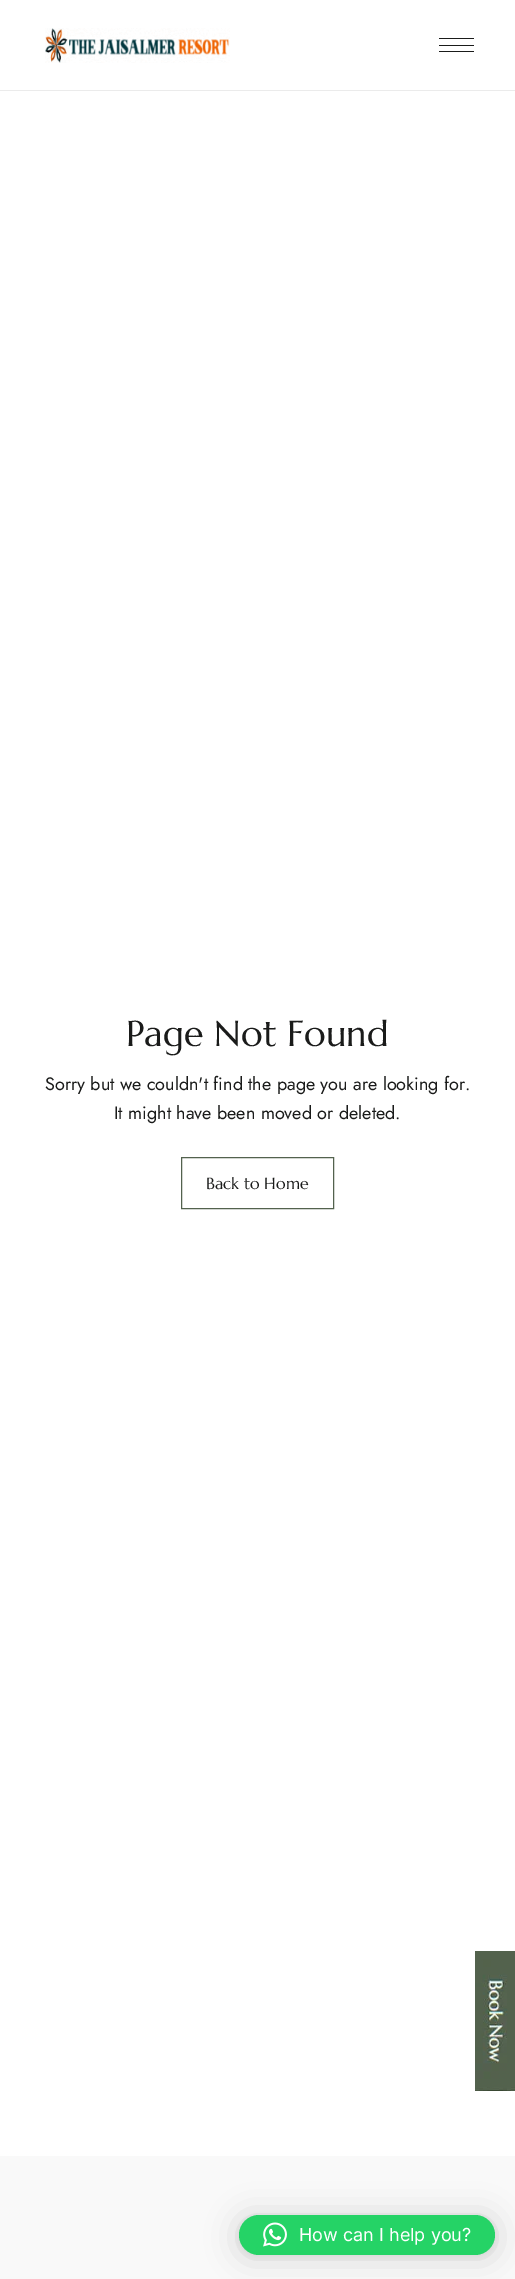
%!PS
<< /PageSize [515 2279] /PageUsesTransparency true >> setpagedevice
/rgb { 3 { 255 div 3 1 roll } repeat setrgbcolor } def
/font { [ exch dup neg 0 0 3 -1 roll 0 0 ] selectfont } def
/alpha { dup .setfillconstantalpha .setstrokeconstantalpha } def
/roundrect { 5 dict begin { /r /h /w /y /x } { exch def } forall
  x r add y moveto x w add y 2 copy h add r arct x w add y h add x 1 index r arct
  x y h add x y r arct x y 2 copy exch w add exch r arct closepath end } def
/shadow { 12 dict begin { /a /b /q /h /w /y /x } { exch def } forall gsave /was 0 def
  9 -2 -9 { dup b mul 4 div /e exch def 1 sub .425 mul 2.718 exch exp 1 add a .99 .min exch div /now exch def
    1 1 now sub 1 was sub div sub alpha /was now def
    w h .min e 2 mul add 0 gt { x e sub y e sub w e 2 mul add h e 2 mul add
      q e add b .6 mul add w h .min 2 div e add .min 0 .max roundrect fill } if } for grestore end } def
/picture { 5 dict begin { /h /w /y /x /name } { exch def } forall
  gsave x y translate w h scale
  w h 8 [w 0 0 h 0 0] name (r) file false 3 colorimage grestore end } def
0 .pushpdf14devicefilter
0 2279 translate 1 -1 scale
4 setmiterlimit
255 255 255 rgb
0 0 515 2279 rectfill
235 235 235 rgb
0 90 515 1 rectfill
(img/1.rgb) 45 28 185 35 picture
[
  [439 38 35 1 26 27 26]
  [439 51 35 1 26 27 26]
  [439 45 35 1 26 27 26]
] { aload pop rgb rectfill } forall
83 98 78 rgb
181.5 1157.5 152 51 rectstroke
(img/2.rgb) 475 1951 40 140 picture
249 249 249 rgb
0 2156 515 123 rectfill
0 0 0 rgb
239 2217 256 40 20 16 0.16 shadow
239 2216 256 40 20 3 0.06 shadow
37 211 102 rgb
239 2215 256 40 20 roundrect fill
(img/3.rgb) 263 2222 24 25 picture
/Marcellus-Regular 36 font
26 27 26 rgb
126 1046 moveto (Page Not Found) show
/Jost-Regular 18 font
45 1090 moveto (Sorry but we couldn't find the page you are looking for.) show
114 1119 moveto (It might have been moved or deleted.) show
/Marcellus-Regular 16 font
206 1189 moveto (Back to Home) show
/Inter-Regular 18 font
255 255 255 rgb
299 2241 moveto (How can I help you?) show
.poppdf14devicefilter showpage
